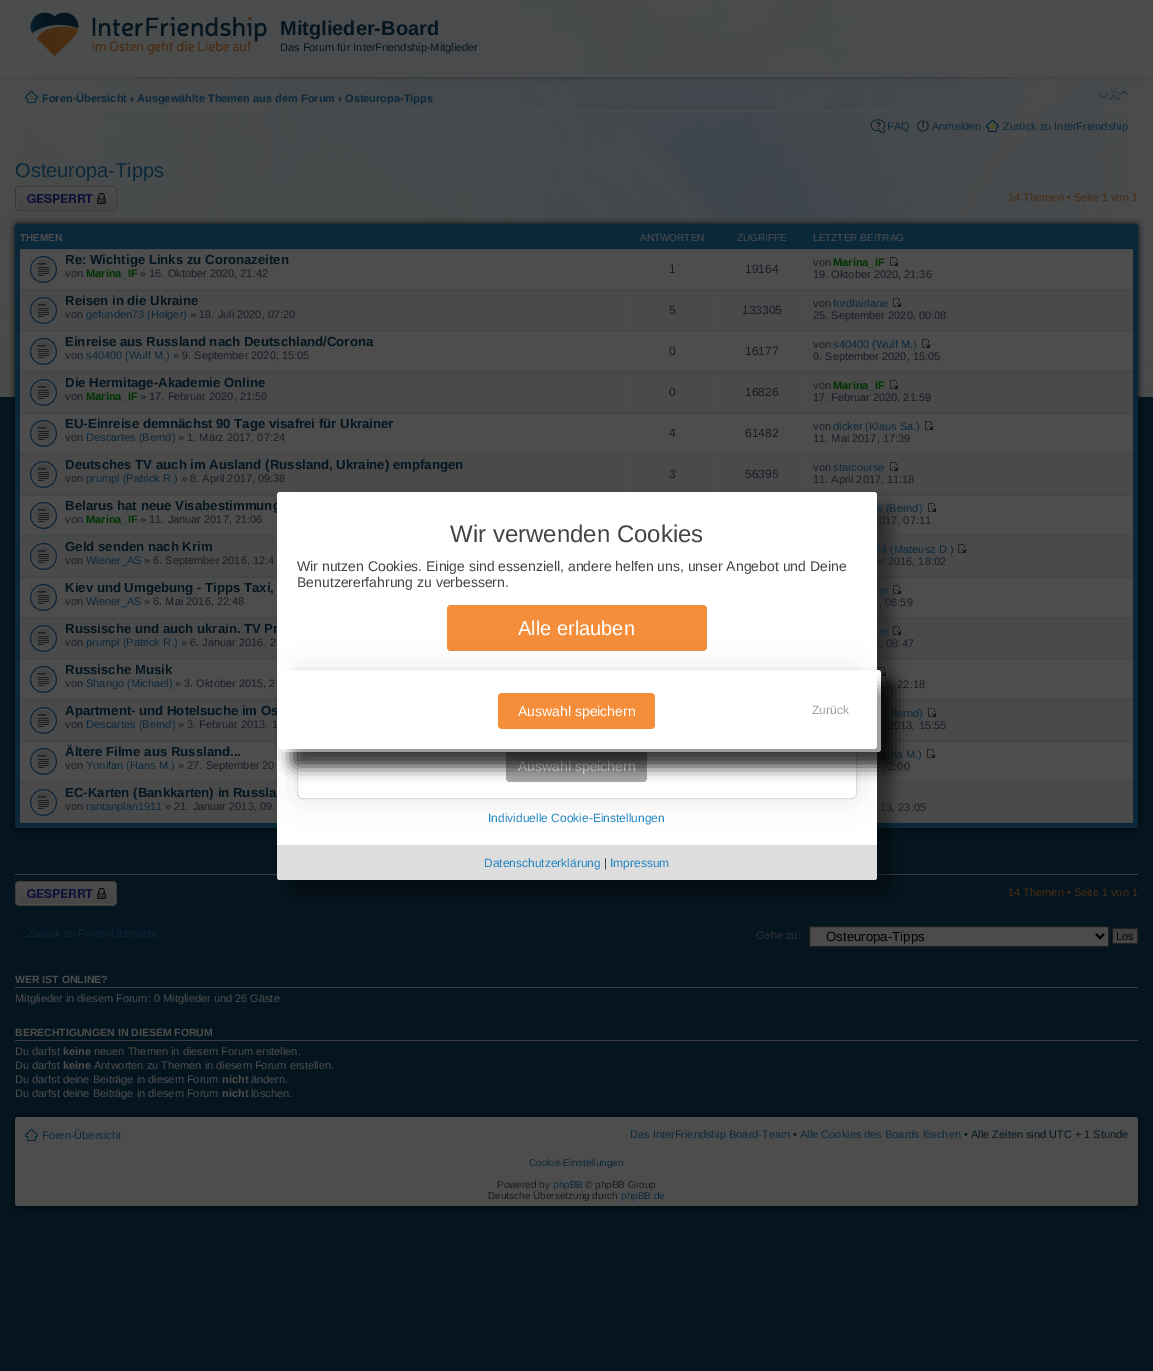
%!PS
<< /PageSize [1153 1371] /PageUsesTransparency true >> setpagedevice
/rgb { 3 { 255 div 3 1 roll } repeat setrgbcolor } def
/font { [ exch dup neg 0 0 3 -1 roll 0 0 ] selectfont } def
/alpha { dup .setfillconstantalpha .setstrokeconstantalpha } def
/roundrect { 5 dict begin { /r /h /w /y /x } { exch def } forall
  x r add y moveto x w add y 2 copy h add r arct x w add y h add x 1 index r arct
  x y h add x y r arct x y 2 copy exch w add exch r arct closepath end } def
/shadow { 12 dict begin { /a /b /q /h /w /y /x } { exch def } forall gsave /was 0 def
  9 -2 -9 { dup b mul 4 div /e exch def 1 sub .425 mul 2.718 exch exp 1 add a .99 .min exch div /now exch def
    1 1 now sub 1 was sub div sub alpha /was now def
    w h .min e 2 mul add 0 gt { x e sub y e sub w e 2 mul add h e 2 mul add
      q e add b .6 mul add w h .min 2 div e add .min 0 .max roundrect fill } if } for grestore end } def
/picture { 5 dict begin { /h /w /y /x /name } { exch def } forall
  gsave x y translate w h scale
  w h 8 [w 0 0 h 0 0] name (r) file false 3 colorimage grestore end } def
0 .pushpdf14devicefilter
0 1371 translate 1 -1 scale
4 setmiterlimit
4 21 31 rgb
0 0 1153 1371 rectfill
(img/1.rgb) 0 0 1153 397 picture
(img/2.rgb) 0 0 1153 82 picture
(img/3.rgb) 30 12 237 44 picture
77 77 77 rgb
25 111 1103 1 rectfill
(img/4.rgb) 25 91 13 12 picture
(img/5.rgb) 1099 88 29 12 picture
(img/6.rgb) 870 119 16 14 picture
(img/7.rgb) 917 120 12 12 picture
(img/8.rgb) 986 120 13 12 picture
(img/9.rgb) 15 186 102 25 picture
5 5 5 rgb
15 224 1123 604 3 3 1 shadow
11 40 58 rgb
15 224 1123 604 3 roundrect fill
[
  [20 250 1113 39 77 77 77]
  [20 249 1113 1 68 71 71]
  [20 289 1113 2 68 71 71]
] { aload pop rgb rectfill } forall
(img/10.rgb) 30 256 27 27 picture
(img/11.rgb) 890 257 8 9 picture
74 74 75 rgb
20 291 1113 39 rectfill
68 71 71 rgb
20 330 1113 2 rectfill
(img/12.rgb) 30 297 27 27 picture
[
  [627 293 1 35 77 77 77]
  [717 293 1 35 77 77 77]
  [807 293 1 32 77 77 77]
] { aload pop rgb rectfill } forall
(img/13.rgb) 893 298 8 9 picture
20 332 1113 39 rectfill
68 71 71 rgb
20 371 1113 2 rectfill
(img/10.rgb) 30 338 27 27 picture
(img/11.rgb) 922 339 8 9 picture
74 74 75 rgb
20 373 1113 39 rectfill
68 71 71 rgb
20 412 1113 2 rectfill
(img/12.rgb) 30 379 27 27 picture
[
  [627 375 1 35 77 77 77]
  [717 375 1 35 77 77 77]
  [807 375 1 32 77 77 77]
] { aload pop rgb rectfill } forall
(img/13.rgb) 890 380 8 9 picture
20 414 1113 39 rectfill
68 71 71 rgb
20 453 1113 2 rectfill
(img/10.rgb) 30 420 27 27 picture
(img/11.rgb) 925 421 8 9 picture
74 74 75 rgb
20 455 1113 39 rectfill
68 71 71 rgb
20 494 1113 2 rectfill
(img/12.rgb) 30 461 27 27 picture
[
  [627 457 1 35 77 77 77]
  [717 457 1 35 77 77 77]
  [807 457 1 32 77 77 77]
] { aload pop rgb rectfill } forall
(img/13.rgb) 890 462 8 9 picture
20 496 1113 39 rectfill
68 71 71 rgb
20 535 1113 2 rectfill
(img/10.rgb) 30 502 27 27 picture
(img/11.rgb) 928 503 8 9 picture
74 74 75 rgb
20 537 1113 39 rectfill
68 71 71 rgb
20 576 1113 2 rectfill
(img/12.rgb) 30 543 27 27 picture
(img/13.rgb) 958 544 8 9 picture
77 77 77 rgb
20 578 1113 39 rectfill
68 71 71 rgb
20 617 1113 2 rectfill
(img/10.rgb) 30 584 27 27 picture
(img/11.rgb) 893 585 8 9 picture
74 74 75 rgb
20 619 1113 39 rectfill
68 71 71 rgb
20 658 1113 2 rectfill
(img/12.rgb) 30 625 27 27 picture
(img/13.rgb) 893 626 8 9 picture
77 77 77 rgb
20 660 1113 39 rectfill
68 71 71 rgb
20 699 1113 2 rectfill
(img/10.rgb) 30 666 27 27 picture
(img/11.rgb) 878 667 8 9 picture
74 74 75 rgb
20 701 1113 39 rectfill
68 71 71 rgb
20 740 1113 2 rectfill
(img/12.rgb) 30 707 27 27 picture
(img/13.rgb) 928 708 8 9 picture
77 77 77 rgb
20 742 1113 39 rectfill
68 71 71 rgb
20 781 1113 2 rectfill
(img/10.rgb) 30 748 27 27 picture
(img/11.rgb) 927 749 8 9 picture
74 74 75 rgb
20 783 1113 39 rectfill
68 71 71 rgb
20 822 1113 1 rectfill
(img/12.rgb) 30 789 27 27 picture
61 61 61 rgb
15 874 1123 1 rectfill
(img/14.rgb) 15 881 102 25 picture
(img/15.rgb) 18 931 4 6 picture
75 75 75 rgb
809.5 926.5 moveto 1108.5 926.5 lineto 1108.5 946.5 lineto 809.5 946.5 lineto closepath gsave fill grestore
31 31 31 rgb
stroke
0 0 0 rgb
2 setlinewidth
1096 934 moveto 1100 938 lineto 1104 934 lineto stroke
(img/16.rgb) 1113 929 24 14 picture
31 31 31 rgb
1 setlinewidth
1112.5 928.5 25 15 rectstroke
61 61 61 rgb
15 987 1123 1 rectfill
15 1040 1123 1 rectfill
5 5 5 rgb
15 1117 1123 89 3 3 1 shadow
77 77 77 rgb
15 1117 1123 89 3 roundrect fill
0 0 0 rgb
291 506 600 388 3 7.5 0.4 shadow
(img/17.rgb) 25 1129 13 12 picture
/LiberationSans-Bold 20 font
4 21 31 rgb
280 35 moveto (Mitglieder-Board) show
/LiberationSans-Regular 11 font
280 51 moveto (Das Forum für InterFriendship-Mitglieder) show
/LiberationSans-Bold 11 font
11 40 58 rgb
42 102 moveto (Foren-Übersicht) show
4 21 31 rgb
130 102 moveto (‹) show
11 40 58 rgb
137 102 moveto (Ausgewählte Themen aus dem Forum) show
4 21 31 rgb
338 102 moveto (‹) show
11 40 58 rgb
345 102 moveto (Osteuropa-Tipps) show
/LiberationSans-Regular 11 font
[
  [(FAQ) 887 130]
  [(Anmelden) 932 130]
  [(Zurück zu InterFriendship) 1003 130]
] { aload pop moveto show } forall
/LiberationSans-Regular 20 font
15 177 moveto (Osteuropa-Tipps) show
/LiberationSans-Regular 11 font
73 43 18 rgb
1008 201 moveto (14 Themen • Seite 1 von 1) show
/LiberationSans-Bold 10 font
77 77 77 rgb
20 241 moveto (THEMEN) show
/LiberationSans-Regular 10 font
[
  [(ANTWORTEN) 640 241]
  [(ZUGRIFFE) 737 241]
  [(LETZTER BEITRAG) 813 241]
] { aload pop moveto show } forall
/LiberationSans-Bold 13.2 font
4 21 31 rgb
65 264 moveto (Re: Wichtige Links zu Coronazeiten) show
/LiberationSans-Regular 11 font
23 28 36 rgb
65 277 moveto (von) show
/LiberationSans-Bold 11 font
0 51 0 rgb
86 277 moveto (Marina_IF) show
/LiberationSans-Regular 11 font
23 28 36 rgb
140 277 moveto (» 16. Oktober 2020, 21:42) show
/LiberationSans-Regular 12 font
669 273 moveto (1) show
745 273 moveto (19164) show
/LiberationSans-Regular 11 font
813 266 moveto (von) show
/LiberationSans-Bold 11 font
0 51 0 rgb
833 266 moveto (Marina_IF) show
/LiberationSans-Regular 11 font
23 28 36 rgb
813 278 moveto (19. Oktober 2020, 21:36) show
/LiberationSans-Bold 13.2 font
4 21 31 rgb
65 305 moveto (Reisen in die Ukraine) show
/LiberationSans-Regular 11 font
23 28 36 rgb
65 318 moveto (von) show
11 40 58 rgb
86 318 moveto (gefunden73 \(Holger\)) show
23 28 36 rgb
190 318 moveto (» 18. Juli 2020, 07:20) show
/LiberationSans-Regular 12 font
669 314 moveto (5) show
742 314 moveto (133305) show
/LiberationSans-Regular 11 font
813 307 moveto (von) show
11 40 58 rgb
833 307 moveto (fordfairlane) show
23 28 36 rgb
813 319 moveto (25. September 2020, 00:08) show
/LiberationSans-Bold 13.2 font
4 21 31 rgb
65 346 moveto (Einreise aus Russland nach Deutschland/Corona) show
/LiberationSans-Regular 11 font
23 28 36 rgb
65 359 moveto (von) show
11 40 58 rgb
86 359 moveto (s40400 \(Wulf M.\)) show
23 28 36 rgb
173 359 moveto (» 9. September 2020, 15:05) show
/LiberationSans-Regular 12 font
669 355 moveto (0) show
745 355 moveto (16177) show
/LiberationSans-Regular 11 font
813 348 moveto (von) show
11 40 58 rgb
833 348 moveto (s40400 \(Wulf M.\)) show
23 28 36 rgb
813 360 moveto (9. September 2020, 15:05) show
/LiberationSans-Bold 13.2 font
4 21 31 rgb
65 387 moveto (Die Hermitage-Akademie Online) show
/LiberationSans-Regular 11 font
23 28 36 rgb
65 400 moveto (von) show
/LiberationSans-Bold 11 font
0 51 0 rgb
86 400 moveto (Marina_IF) show
/LiberationSans-Regular 11 font
23 28 36 rgb
140 400 moveto (» 17. Februar 2020, 21:59) show
/LiberationSans-Regular 12 font
669 396 moveto (0) show
745 396 moveto (16826) show
/LiberationSans-Regular 11 font
813 389 moveto (von) show
/LiberationSans-Bold 11 font
0 51 0 rgb
833 389 moveto (Marina_IF) show
/LiberationSans-Regular 11 font
23 28 36 rgb
813 401 moveto (17. Februar 2020, 21:59) show
/LiberationSans-Bold 13.2 font
4 21 31 rgb
65 428 moveto (EU-Einreise demnächst 90 Tage visafrei für Ukrainer) show
/LiberationSans-Regular 11 font
23 28 36 rgb
65 441 moveto (von) show
11 40 58 rgb
86 441 moveto (Descartes \(Bernd\)) show
23 28 36 rgb
178 441 moveto (» 1. März 2017, 07:24) show
/LiberationSans-Regular 12 font
669 437 moveto (4) show
745 437 moveto (61482) show
/LiberationSans-Regular 11 font
813 430 moveto (von) show
11 40 58 rgb
833 430 moveto (dicker \(Klaus Sa.\)) show
23 28 36 rgb
813 442 moveto (11. Mai 2017, 17:39) show
/LiberationSans-Bold 13.2 font
4 21 31 rgb
65 469 moveto (Deutsches TV auch im Ausland \(Russland, Ukraine\) empfangen) show
/LiberationSans-Regular 11 font
23 28 36 rgb
65 482 moveto (von) show
11 40 58 rgb
86 482 moveto (prumpl \(Patrick R.\)) show
23 28 36 rgb
181 482 moveto (» 8. April 2017, 09:38) show
/LiberationSans-Regular 12 font
669 478 moveto (3) show
745 478 moveto (56395) show
/LiberationSans-Regular 11 font
813 471 moveto (von) show
11 40 58 rgb
833 471 moveto (starcourse) show
23 28 36 rgb
813 483 moveto (11. April 2017, 11:18) show
/LiberationSans-Bold 13.2 font
4 21 31 rgb
65 510 moveto (Belarus hat neue Visabestimmung) show
/LiberationSans-Regular 11 font
23 28 36 rgb
65 523 moveto (von) show
/LiberationSans-Bold 11 font
0 51 0 rgb
86 523 moveto (Marina_IF) show
/LiberationSans-Regular 11 font
23 28 36 rgb
140 523 moveto (» 11. Januar 2017, 21:06) show
11 40 58 rgb
877 512 moveto (s \(Bernd\)) show
23 28 36 rgb
879 524 moveto (017, 07:11) show
/LiberationSans-Bold 13.2 font
4 21 31 rgb
65 551 moveto (Geld senden nach Krim) show
/LiberationSans-Regular 11 font
23 28 36 rgb
65 564 moveto (von) show
11 40 58 rgb
86 564 moveto (Wiener_AS) show
23 28 36 rgb
144 564 moveto (» 6. September 2016, 12:4) show
11 40 58 rgb
875 553 moveto (74 \(Mateusz D.\)) show
23 28 36 rgb
875 565 moveto (er 2016, 18:02) show
/LiberationSans-Bold 13.2 font
4 21 31 rgb
65 592 moveto (Kiev und Umgebung - Tipps Taxi,) show
/LiberationSans-Regular 11 font
23 28 36 rgb
65 605 moveto (von) show
11 40 58 rgb
86 605 moveto (Wiener_AS) show
23 28 36 rgb
144 605 moveto (» 6. Mai 2016, 22:48) show
11 40 58 rgb
879 594 moveto (er) show
23 28 36 rgb
879 606 moveto (, 06:59) show
/LiberationSans-Bold 13.2 font
4 21 31 rgb
65 633 moveto (Russische und auch ukrain. TV Pr) show
/LiberationSans-Regular 11 font
23 28 36 rgb
65 646 moveto (von) show
11 40 58 rgb
86 646 moveto (prumpl \(Patrick R.\)) show
23 28 36 rgb
181 646 moveto (» 6. Januar 2016, 2) show
11 40 58 rgb
879 635 moveto (er) show
23 28 36 rgb
874 647 moveto (6, 08:47) show
/LiberationSans-Bold 13.2 font
4 21 31 rgb
65 674 moveto (Russische Musik) show
/LiberationSans-Regular 11 font
23 28 36 rgb
65 687 moveto (von) show
11 40 58 rgb
86 687 moveto (Shango \(Michael\)) show
23 28 36 rgb
175 687 moveto (» 3. Oktober 2015, 2) show
879 688 moveto (15, 22:18) show
/LiberationSans-Bold 13.2 font
4 21 31 rgb
65 715 moveto (Apartment- und Hotelsuche im Os) show
/LiberationSans-Regular 11 font
23 28 36 rgb
65 728 moveto (von) show
11 40 58 rgb
86 728 moveto (Descartes \(Bernd\)) show
23 28 36 rgb
178 728 moveto (» 3. Februar 2013, 1) show
11 40 58 rgb
890 717 moveto (Bernd\)) show
23 28 36 rgb
888 729 moveto (2013, 15:55) show
/LiberationSans-Bold 13.2 font
4 21 31 rgb
65 756 moveto (Ältere Filme aus Russland...) show
/LiberationSans-Regular 11 font
23 28 36 rgb
65 769 moveto (von) show
11 40 58 rgb
86 769 moveto (Yonifan \(Hans M.\)) show
23 28 36 rgb
178 769 moveto (» 27. September 20) show
11 40 58 rgb
891 758 moveto (ns M.\)) show
23 28 36 rgb
876 770 moveto (, 22:00) show
/LiberationSans-Bold 13.2 font
4 21 31 rgb
65 797 moveto (EC-Karten \(Bankkarten\) in Russla) show
/LiberationSans-Regular 11 font
23 28 36 rgb
65 810 moveto (von) show
11 40 58 rgb
86 810 moveto (rantanplan1911) show
23 28 36 rgb
165 810 moveto (» 21. Januar 2013, 09:) show
880 811 moveto (13, 23:05) show
73 43 18 rgb
1008 896 moveto (14 Themen • Seite 1 von 1) show
11 40 58 rgb
27 937 moveto (Zurück zu Foren-Übersicht) show
50 50 50 rgb
756 939 moveto (Gehe zu:) show
/LiberationSans-Regular 13.25 font
0 0 0 rgb
826 941 moveto (Osteuropa-Tipps) show
/LiberationSans-Regular 11 font
1116 940 moveto (Los) show
/LiberationSans-Bold 10.5 font
77 77 77 rgb
15 983 moveto (WER IST ONLINE?) show
/LiberationSans-Regular 11 font
15 1002 moveto (Mitglieder in diesem Forum: 0 Mitglieder und 26 Gäste) show
/LiberationSans-Bold 10.5 font
15 1036 moveto (BERECHTIGUNGEN IN DIESEM FORUM) show
/LiberationSans-Regular 11 font
15 1055 moveto (Du darfst) show
/LiberationSans-Bold 11 font
63 1055 moveto (keine) show
/LiberationSans-Regular 11 font
94 1055 moveto (neuen Themen in diesem Forum erstellen.) show
15 1069 moveto (Du darfst) show
/LiberationSans-Bold 11 font
63 1069 moveto (keine) show
/LiberationSans-Regular 11 font
94 1069 moveto (Antworten zu Themen in diesem Forum erstellen.) show
15 1083 moveto (Du darfst deine Beiträge in diesem Forum) show
/LiberationSans-Bold 11 font
222 1083 moveto (nicht) show
/LiberationSans-Regular 11 font
251 1083 moveto (ändern.) show
15 1097 moveto (Du darfst deine Beiträge in diesem Forum) show
/LiberationSans-Bold 11 font
222 1097 moveto (nicht) show
/LiberationSans-Regular 11 font
251 1097 moveto (löschen.) show
255 255 255 rgb
277 492 600 388 3 roundrect fill
/LiberationSans-Regular 24 font
68 68 68 rgb
450 542 moveto (Wir verwenden Cookies) show
/LiberationSans-Regular 14 font
297 571 moveto (Wir nutzen Cookies. Einige sind essenziell, andere helfen uns, unser Angebot und Deine) show
297 587 moveto (Benutzererfahrung zu verbessern.) show
244 142 59 rgb
447 605 260 46 4 roundrect fill
gsave
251 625 moveto 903 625 lineto 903 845 lineto 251 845 lineto closepath 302 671 moveto 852 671 lineto 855 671 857 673 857 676 curveto 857 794 lineto 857 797 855 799 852 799 curveto 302 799 lineto 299 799 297 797 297 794 curveto 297 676 lineto 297 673 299 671 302 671 curveto closepath eoclip newpath
0 0 0 rgb
297 671 560 128 5 15 0.1 shadow
grestore
/LiberationSans-Regular 20 font
255 255 255 rgb
518 635 moveto (Alle erlauben) show
204 204 204 rgb
[1 1] 0 setdash
302 671.5 moveto 852 671.5 lineto 854.5 671.5 856.5 673.5 856.5 676 curveto 856.5 794 lineto 856.5 796.5 854.5 798.5 852 798.5 curveto 302 798.5 lineto 299.5 798.5 297.5 796.5 297.5 794 curveto 297.5 676 lineto 297.5 673.5 299.5 671.5 302 671.5 curveto closepath stroke
170 170 170 rgb
506 750 141 32 4 roundrect fill
/LiberationSans-Regular 14 font
255 255 255 rgb
518 771 moveto (Auswahl speichern) show
/LiberationSans-Regular 12 font
35 134 193 rgb
488 822 moveto (Individuelle Cookie-Einstellungen) show
221 221 221 rgb
277 845 moveto 877 845 lineto 877 877 lineto 877 878.5 875.5 880 874 880 curveto 280 880 lineto 278.5 880 277 878.5 277 877 curveto closepath fill
35 134 193 rgb
484 867 moveto (Datenschutzerklärung) show
68 68 68 rgb
604 867 moveto (|) show
35 134 193 rgb
610 867 moveto (Impressum) show
0 0 0 rgb
295 684 600 82 3 7.5 0.4 shadow
295 684 600 82 3 7.5 0.4 shadow
255 255 255 rgb
281 670 600 82 3 roundrect fill
0 0 0 rgb
291 687 600 76 3 7.5 0.4 shadow
255 255 255 rgb
277 673 600 76 3 roundrect fill
244 142 59 rgb
498 693 157 36 4 roundrect fill
/LiberationSans-Regular 14 font
255 255 255 rgb
518 716 moveto (Auswahl speichern) show
/LiberationSans-Regular 12 font
160 160 160 rgb
812 714 moveto (Zurück) show
/LiberationSans-Regular 11 font
11 40 58 rgb
42 1139 moveto (Foren-Übersicht) show
630 1138 moveto (Das InterFriendship Board-Team) show
4 21 31 rgb
793 1138 moveto (•) show
11 40 58 rgb
800 1138 moveto (Alle Cookies des Boards löschen) show
4 21 31 rgb
964 1138 moveto (• Alle Zeiten sind UTC + 1 Stunde) show
/LiberationSans-Regular 10 font
11 40 58 rgb
529 1166 moveto (Cookie-Einstellungen) show
26 26 26 rgb
497 1188 moveto (Powered by) show
11 40 58 rgb
553 1188 moveto (phpBB) show
26 26 26 rgb
585 1188 moveto (© phpBB Group) show
488 1199 moveto (Deutsche Übersetzung durch) show
11 40 58 rgb
621 1199 moveto (phpBB.de) show
.poppdf14devicefilter showpage
